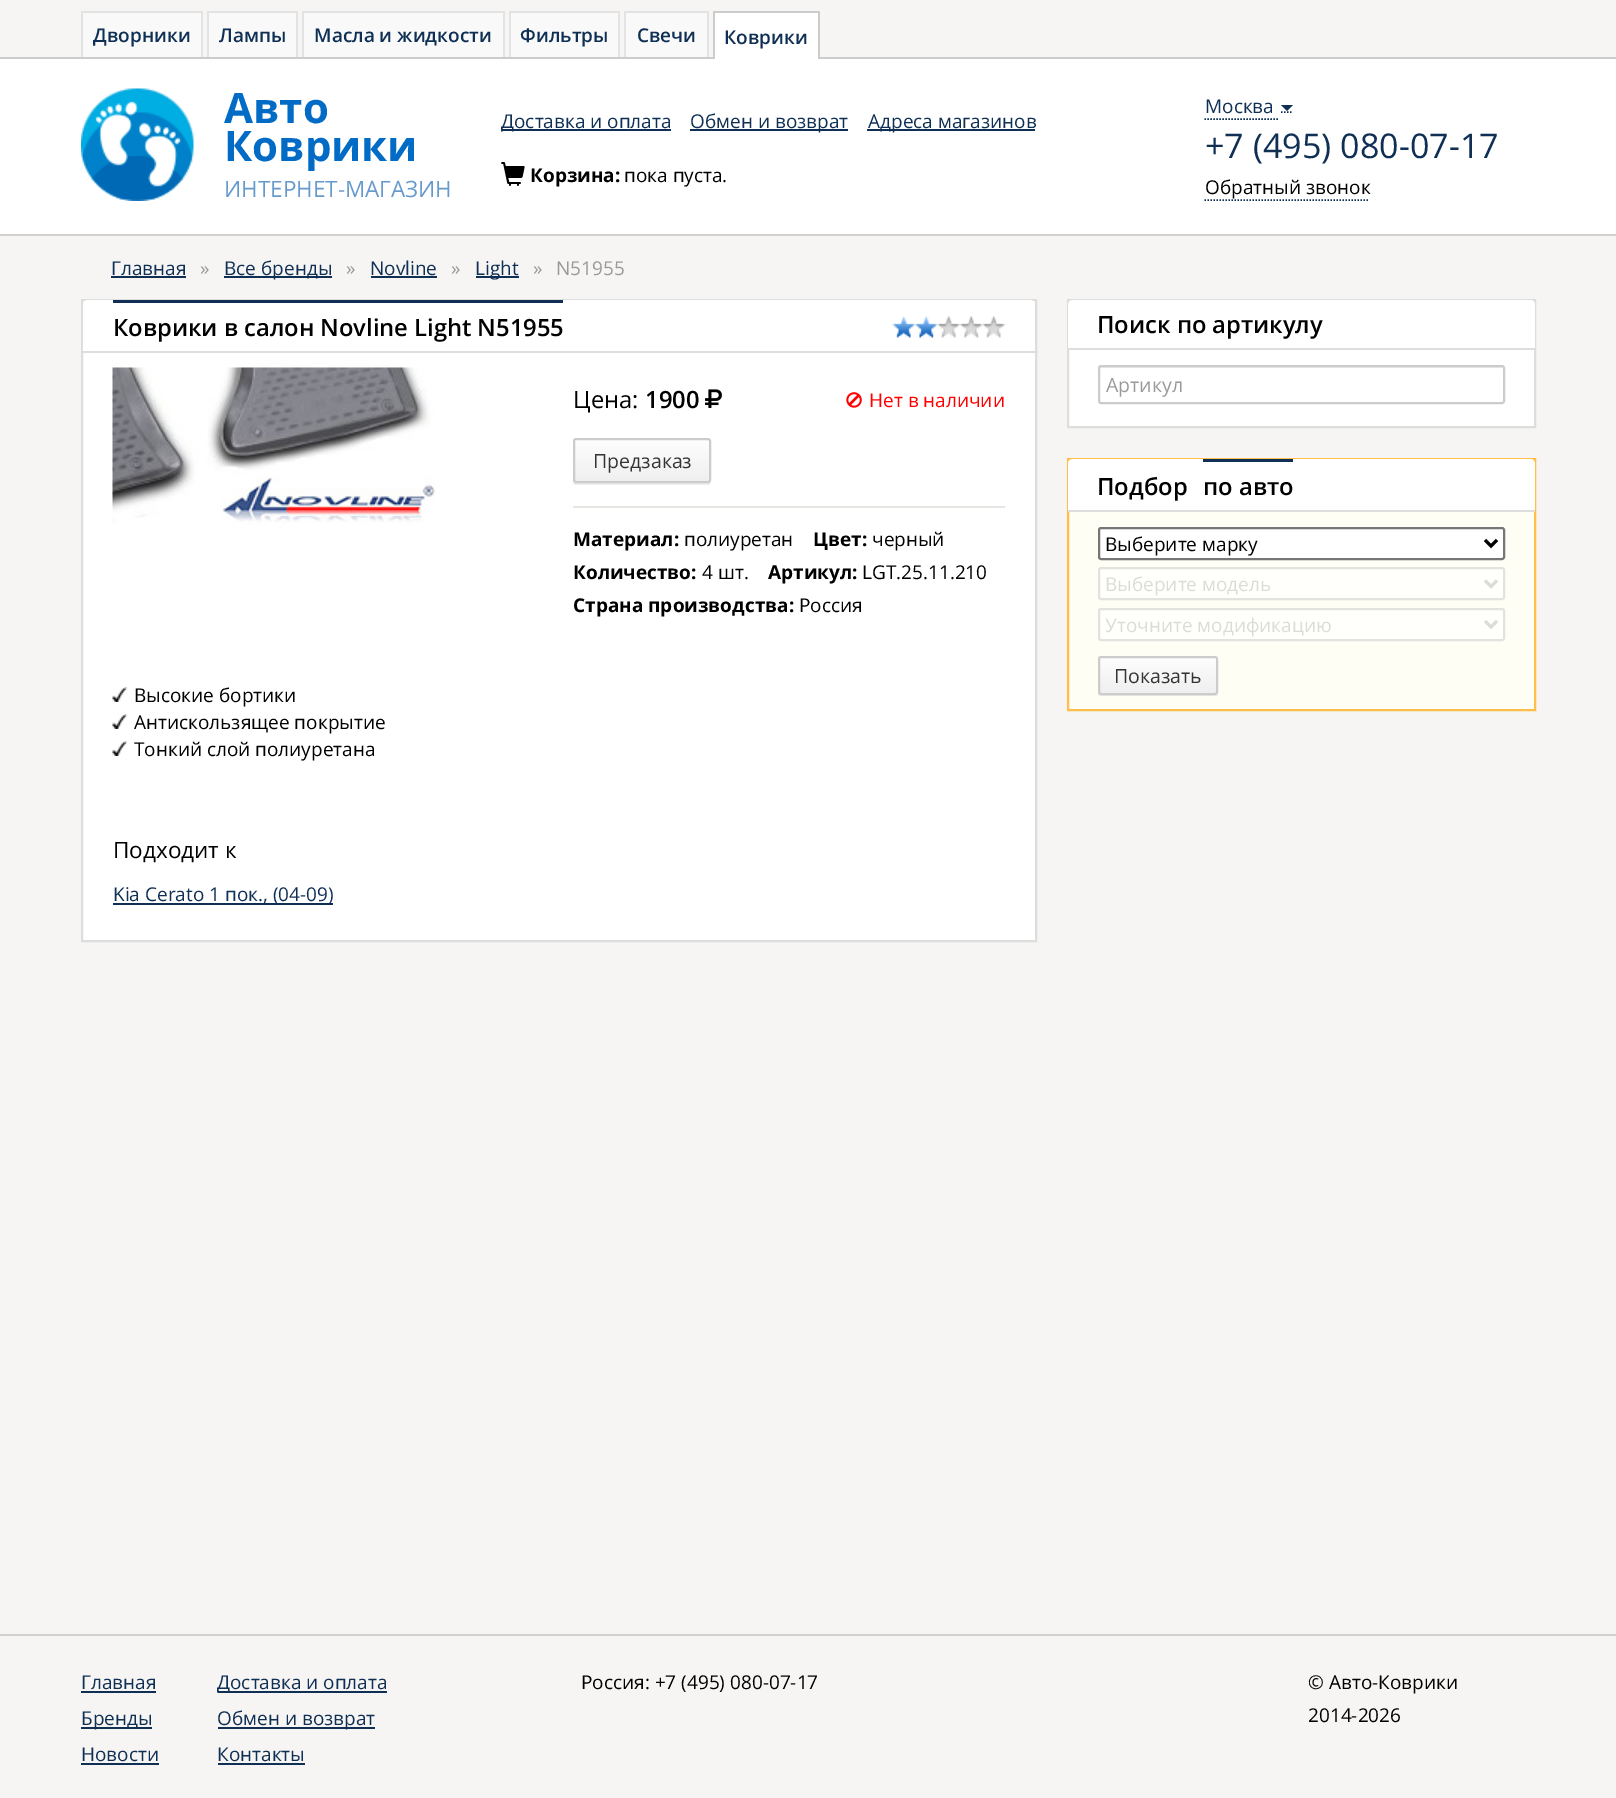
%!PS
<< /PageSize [1616 1798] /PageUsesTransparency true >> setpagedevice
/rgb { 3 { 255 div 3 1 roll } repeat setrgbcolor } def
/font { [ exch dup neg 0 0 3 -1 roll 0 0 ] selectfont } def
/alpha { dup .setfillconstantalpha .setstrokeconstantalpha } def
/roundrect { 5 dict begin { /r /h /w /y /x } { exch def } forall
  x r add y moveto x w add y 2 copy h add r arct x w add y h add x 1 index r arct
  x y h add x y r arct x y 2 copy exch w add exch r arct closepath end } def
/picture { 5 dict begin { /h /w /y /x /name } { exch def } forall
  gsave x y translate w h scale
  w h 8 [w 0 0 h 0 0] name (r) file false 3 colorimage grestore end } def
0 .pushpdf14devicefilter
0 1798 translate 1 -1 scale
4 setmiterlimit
246 245 243 rgb
0 0 1616 1798 rectfill
[
  [83 13 118 44 249 249 249]
  [81 11 122 2 227 227 227]
  [201 11 2 46 227 227 227]
  [81 11 2 46 227 227 227]
  [209 13 87 44 249 249 249]
  [207 11 90 2 227 227 227]
  [296 11 2 46 227 227 227]
  [207 11 2 46 227 227 227]
  [304 13 199 44 249 249 249]
  [302 11 202 2 227 227 227]
  [503 11 2 46 227 227 227]
  [302 11 2 46 227 227 227]
  [511 13 107 44 249 249 249]
  [509 11 111 2 227 227 227]
  [618 11 2 46 227 227 227]
  [509 11 2 46 227 227 227]
  [626 13 81 44 249 249 249]
  [624 11 84 2 227 227 227]
  [707 11 2 46 227 227 227]
  [624 11 2 46 227 227 227]
  [0 57 1616 2 204 204 204]
  [715 13 103 46 255 255 255]
  [713 11 106 2 204 204 204]
  [818 11 2 48 204 204 204]
  [713 11 2 48 204 204 204]
  [0 59 1616 175 255 255 255]
  [0 234 1616 2 209 208 207]
] { aload pop rgb rectfill } forall
(img/1.rgb) 81 88 113 113 picture
[
  [501 129 170 2 15 48 84]
  [690 129 158 2 15 48 84]
  [867 129 168 2 15 48 84]
] { aload pop rgb rectfill } forall
1.5 setlinewidth
[1.5 1.5] 0 setdash
1204.5 119 moveto 1278 119 lineto stroke
1281 112 moveto 1293 112 lineto stroke
1281 105 moveto 1293 105 lineto 1287 111 lineto closepath fill
1204.5 200 moveto 1369.5 200 lineto stroke
(img/2.rgb) 501 162 24 24 picture
[
  [111 276 75 2 15 48 84]
  [224 276 108 2 15 48 84]
  [371 276 66 2 15 48 84]
  [476 276 43 2 15 48 84]
] { aload pop rgb rectfill } forall
255 255 255 rgb
82 300 moveto 1036 300 lineto 1036 941 lineto 82 941 lineto closepath gsave fill grestore
221 221 221 rgb
2 setlinewidth
[] 0 setdash
stroke
255 255 255 rgb
88 300 moveto 1030 300 lineto 1033 300 1035 302 1035 305 curveto 1035 353 lineto 83 353 lineto 83 305 lineto 83 302 85 300 88 300 curveto closepath fill
221 221 221 rgb
83 351 952 2 rectfill
15 48 84 rgb
113 300 450 3 rectfill
(img/3.rgb) 892 316 23 22 picture
(img/4.rgb) 915 316 23 22 picture
(img/5.rgb) 937 316 23 22 picture
(img/6.rgb) 960 316 23 22 picture
(img/7.rgb) 982 316 23 22 picture
(img/8.rgb) 112 367 324 158 picture
230 229 226 rgb
573 506 432 2 rectfill
(img/9.rgb) 705 389 17 19 picture
(img/10.rgb) 846 392 16 16 picture
237 237 237 rgb
573 480 moveto 573 482 lineto 573 484 574 485 576 485 curveto 708 485 lineto 710 485 711 484 711 482 curveto 711 480 lineto 711 482 710 483 708 483 curveto 576 483 lineto 574 483 573 482 573 480 curveto closepath fill
gsave
573 438 138 45 3 roundrect clip newpath
gsave 573 440 moveto 711 440 lineto 711 482 lineto 573 482 lineto closepath clip newpath
<< /ShadingType 2 /ColorSpace /DeviceRGB /Coords [642 440 642 482] /Extend [true true] /Function << /FunctionType 2 /Domain [0 1] /C0 [0.996 0.996 0.996] /C1 [0.937 0.937 0.937] /N 1 >> >> shfill grestore
grestore
204 204 204 rgb
574 439 136 43 2 roundrect stroke
(img/11.rgb) 112 687 16 15 picture
(img/11.rgb) 112 714 16 15 picture
(img/11.rgb) 112 741 16 15 picture
15 48 84 rgb
113 903 220 2 rectfill
255 255 255 rgb
1068 300 moveto 1535 300 lineto 1535 427 lineto 1068 427 lineto closepath gsave fill grestore
221 221 221 rgb
stroke
255 255 255 rgb
1073 300 moveto 1530 300 lineto 1533 300 1535 302 1535 305 curveto 1535 350 lineto 1068 350 lineto 1068 305 lineto 1068 302 1070 300 1073 300 curveto closepath fill
221 221 221 rgb
1068 348 467 2 rectfill
236 236 236 rgb
1101 368 moveto 1502 368 lineto 1503 369 lineto 1502 366 lineto 1102 366 lineto 1100 366 1100 368 1100 369 curveto 1100 368 1100 368 1101 368 curveto closepath fill
204 204 204 rgb
1099 366 405 37 2 roundrect stroke
255 254 245 rgb
1068 459 moveto 1535 459 lineto 1535 710 lineto 1068 710 lineto closepath gsave fill grestore
255 189 74 rgb
stroke
255 255 255 rgb
1073 459 moveto 1530 459 lineto 1533 459 1535 461 1535 464 curveto 1535 512 lineto 1068 512 lineto 1068 464 lineto 1068 461 1070 459 1073 459 curveto closepath fill
221 221 221 rgb
1068 510 467 2 rectfill
15 48 84 rgb
1203 459 90 3 rectfill
255 255 255 rgb
1099 528 405 31 2 roundrect gsave fill grestore
118 118 118 rgb
stroke
0 0 0 rgb
3 setlinewidth
1485 540 moveto 1491 546 lineto 1497 540 lineto stroke
255 255 252 rgb
1098 567 407 33 3 roundrect fill
0.3 alpha
159 159 156 rgb
2 setlinewidth
1099 568 405 31 2 roundrect stroke
1 alpha
219 219 216 rgb
3 setlinewidth
1485 580.5 moveto 1491 586.5 lineto 1497 580.5 lineto stroke
255 255 252 rgb
1098 608 407 33 3 roundrect fill
0.3 alpha
159 159 156 rgb
2 setlinewidth
1099 609 405 31 2 roundrect stroke
1 alpha
219 219 216 rgb
3 setlinewidth
1485 621 moveto 1491 627 lineto 1497 621 lineto stroke
237 236 228 rgb
1098 692 moveto 1098 693 lineto 1098 695 1099 696 1101 696 curveto 1215 696 lineto 1217 696 1218 695 1218 693 curveto 1218 692 lineto 1218 693 1217 694 1215 694 curveto 1101 694 lineto 1099 694 1098 693 1098 692 curveto closepath fill
gsave
1098 656 120 39 3 roundrect clip newpath
gsave 1098 657 moveto 1218 657 lineto 1218 693 lineto 1098 693 lineto closepath clip newpath
<< /ShadingType 2 /ColorSpace /DeviceRGB /Coords [1158 657 1158 693] /Extend [true true] /Function << /FunctionType 2 /Domain [0 1] /C0 [0.996 0.996 0.996] /C1 [0.937 0.937 0.937] /N 1 >> >> shfill grestore
grestore
204 204 204 rgb
2 setlinewidth
1099 657 118 37 2 roundrect stroke
[
  [0 1634 1616 2 209 208 207]
  [81 1691 75 2 15 48 84]
  [81 1727 71 2 15 48 84]
  [81 1763 78 2 15 48 84]
  [218 1691 169 2 15 48 84]
  [218 1727 157 2 15 48 84]
  [218 1763 87 2 15 48 84]
] { aload pop rgb rectfill } forall
/OpenSans-SemiBold 19 font
[
  [(Дворники) 93 42]
  [(Лампы) 219 42]
  [(Масла и жидкости) 314 42]
  [(Фильтры) 520 42]
  [(Свечи) 637 42]
  [(Коврики) 724 44]
] { aload pop moveto show } forall
/OpenSans-Bold 42 font
2 107 197 rgb
224 123 moveto (Авто) show
224 161 moveto (Коврики) show
/OpenSans-Regular 22.5 font
102 153 204 rgb
224 197 moveto (ИНТЕРНЕТ-МАГАЗИН) show
/OpenSans-Regular 19 font
15 48 84 rgb
[
  [(Доставка и оплата) 501 128]
  [(Обмен и возврат) 690 128]
  [(Адреса магазинов) 868 128]
  [(Москва) 1205 113]
] { aload pop moveto show } forall
/OpenSans-Regular 34.1 font
1205 158 moveto (+7 \(495\) 080-07-17) show
/OpenSans-Regular 19 font
0 0 0 rgb
1205 194 moveto (Обратный звонок) show
/OpenSans-Bold 19 font
530 182 moveto (Корзина:) show
/OpenSans-Regular 19 font
624 182 moveto (пока пуста.) show
15 48 84 rgb
111 275 moveto (Главная) show
153 153 153 rgb
200 275 moveto (») show
15 48 84 rgb
224 275 moveto (Все бренды) show
153 153 153 rgb
346 275 moveto (») show
15 48 84 rgb
370 275 moveto (Novline) show
153 153 153 rgb
451 275 moveto (») show
15 48 84 rgb
475 275 moveto (Light) show
153 153 153 rgb
533 275 moveto (») show
556 275 moveto (N51955) show
/OpenSans-SemiBold 23.75 font
0 0 0 rgb
113 336 moveto (Коврики в салон Novline Light N51955) show
/OpenSans-Regular 23.75 font
573 408 moveto (Цена:) show
/OpenSans-SemiBold 23.75 font
645 408 moveto (1900) show
/OpenSans-Regular 19 font
255 0 0 rgb
869 407 moveto (Нет в наличии) show
/OpenSans-Regular 19.5 font
51 51 51 rgb
593 468 moveto (Предзаказ) show
/OpenSans-Bold 19 font
0 0 0 rgb
573 546 moveto (Материал:) show
/OpenSans-Regular 19 font
684 546 moveto (полиуретан) show
/OpenSans-Bold 19 font
813 546 moveto (Цвет:) show
/OpenSans-Regular 19 font
872 546 moveto (черный) show
/OpenSans-Bold 19 font
573 579 moveto (Количество:) show
/OpenSans-Regular 19 font
702 579 moveto (4 шт.) show
/OpenSans-Bold 19 font
768 579 moveto (Артикул:) show
/OpenSans-Regular 19 font
862 579 moveto (LGT.25.11.210) show
/OpenSans-Bold 19 font
573 612 moveto (Страна производства:) show
/OpenSans-Regular 19 font
[
  [(Россия) 799 612]
  [(Высокие бортики) 134 702]
  [(Антискользящее покрытие) 134 729]
  [(Тонкий слой полиуретана) 134 756]
] { aload pop moveto show } forall
/OpenSans-Regular 22.5 font
113 858 moveto (Подходит к) show
/OpenSans-Regular 19 font
15 48 84 rgb
113 901 moveto (Kia Cerato 1 пок., \(04-09\)) show
/OpenSans-SemiBold 23.75 font
0 0 0 rgb
1097 333 moveto (Поиск по артикулу) show
/OpenSans-Regular 19.5 font
153 153 153 rgb
1106 392 moveto (Артикул) show
/OpenSans-SemiBold 23.75 font
0 0 0 rgb
1097 495 moveto (Подбор) show
1203 495 moveto (по авто) show
/OpenSans-Regular 19 font
1105 551 moveto (Выберите марку) show
219 219 216 rgb
1105 591 moveto (Выберите модель) show
gsave
1106 609 373 30 rectclip
1105 632 moveto (Уточните модификацию) show
grestore
/OpenSans-Regular 19.5 font
51 51 51 rgb
1114 683 moveto (Показать) show
/OpenSans-Regular 19 font
15 48 84 rgb
[
  [(Главная) 81 1689]
  [(Бренды) 81 1725]
  [(Новости) 81 1761]
  [(Доставка и оплата) 217 1689]
  [(Обмен и возврат) 217 1725]
  [(Контакты) 217 1761]
] { aload pop moveto show } forall
0 0 0 rgb
[
  [(Россия: +7 \(495\) 080-07-17) 581 1689]
  [(© Авто-Коврики) 1308 1689]
  [(2014-2026) 1308 1722]
] { aload pop moveto show } forall
.poppdf14devicefilter showpage
